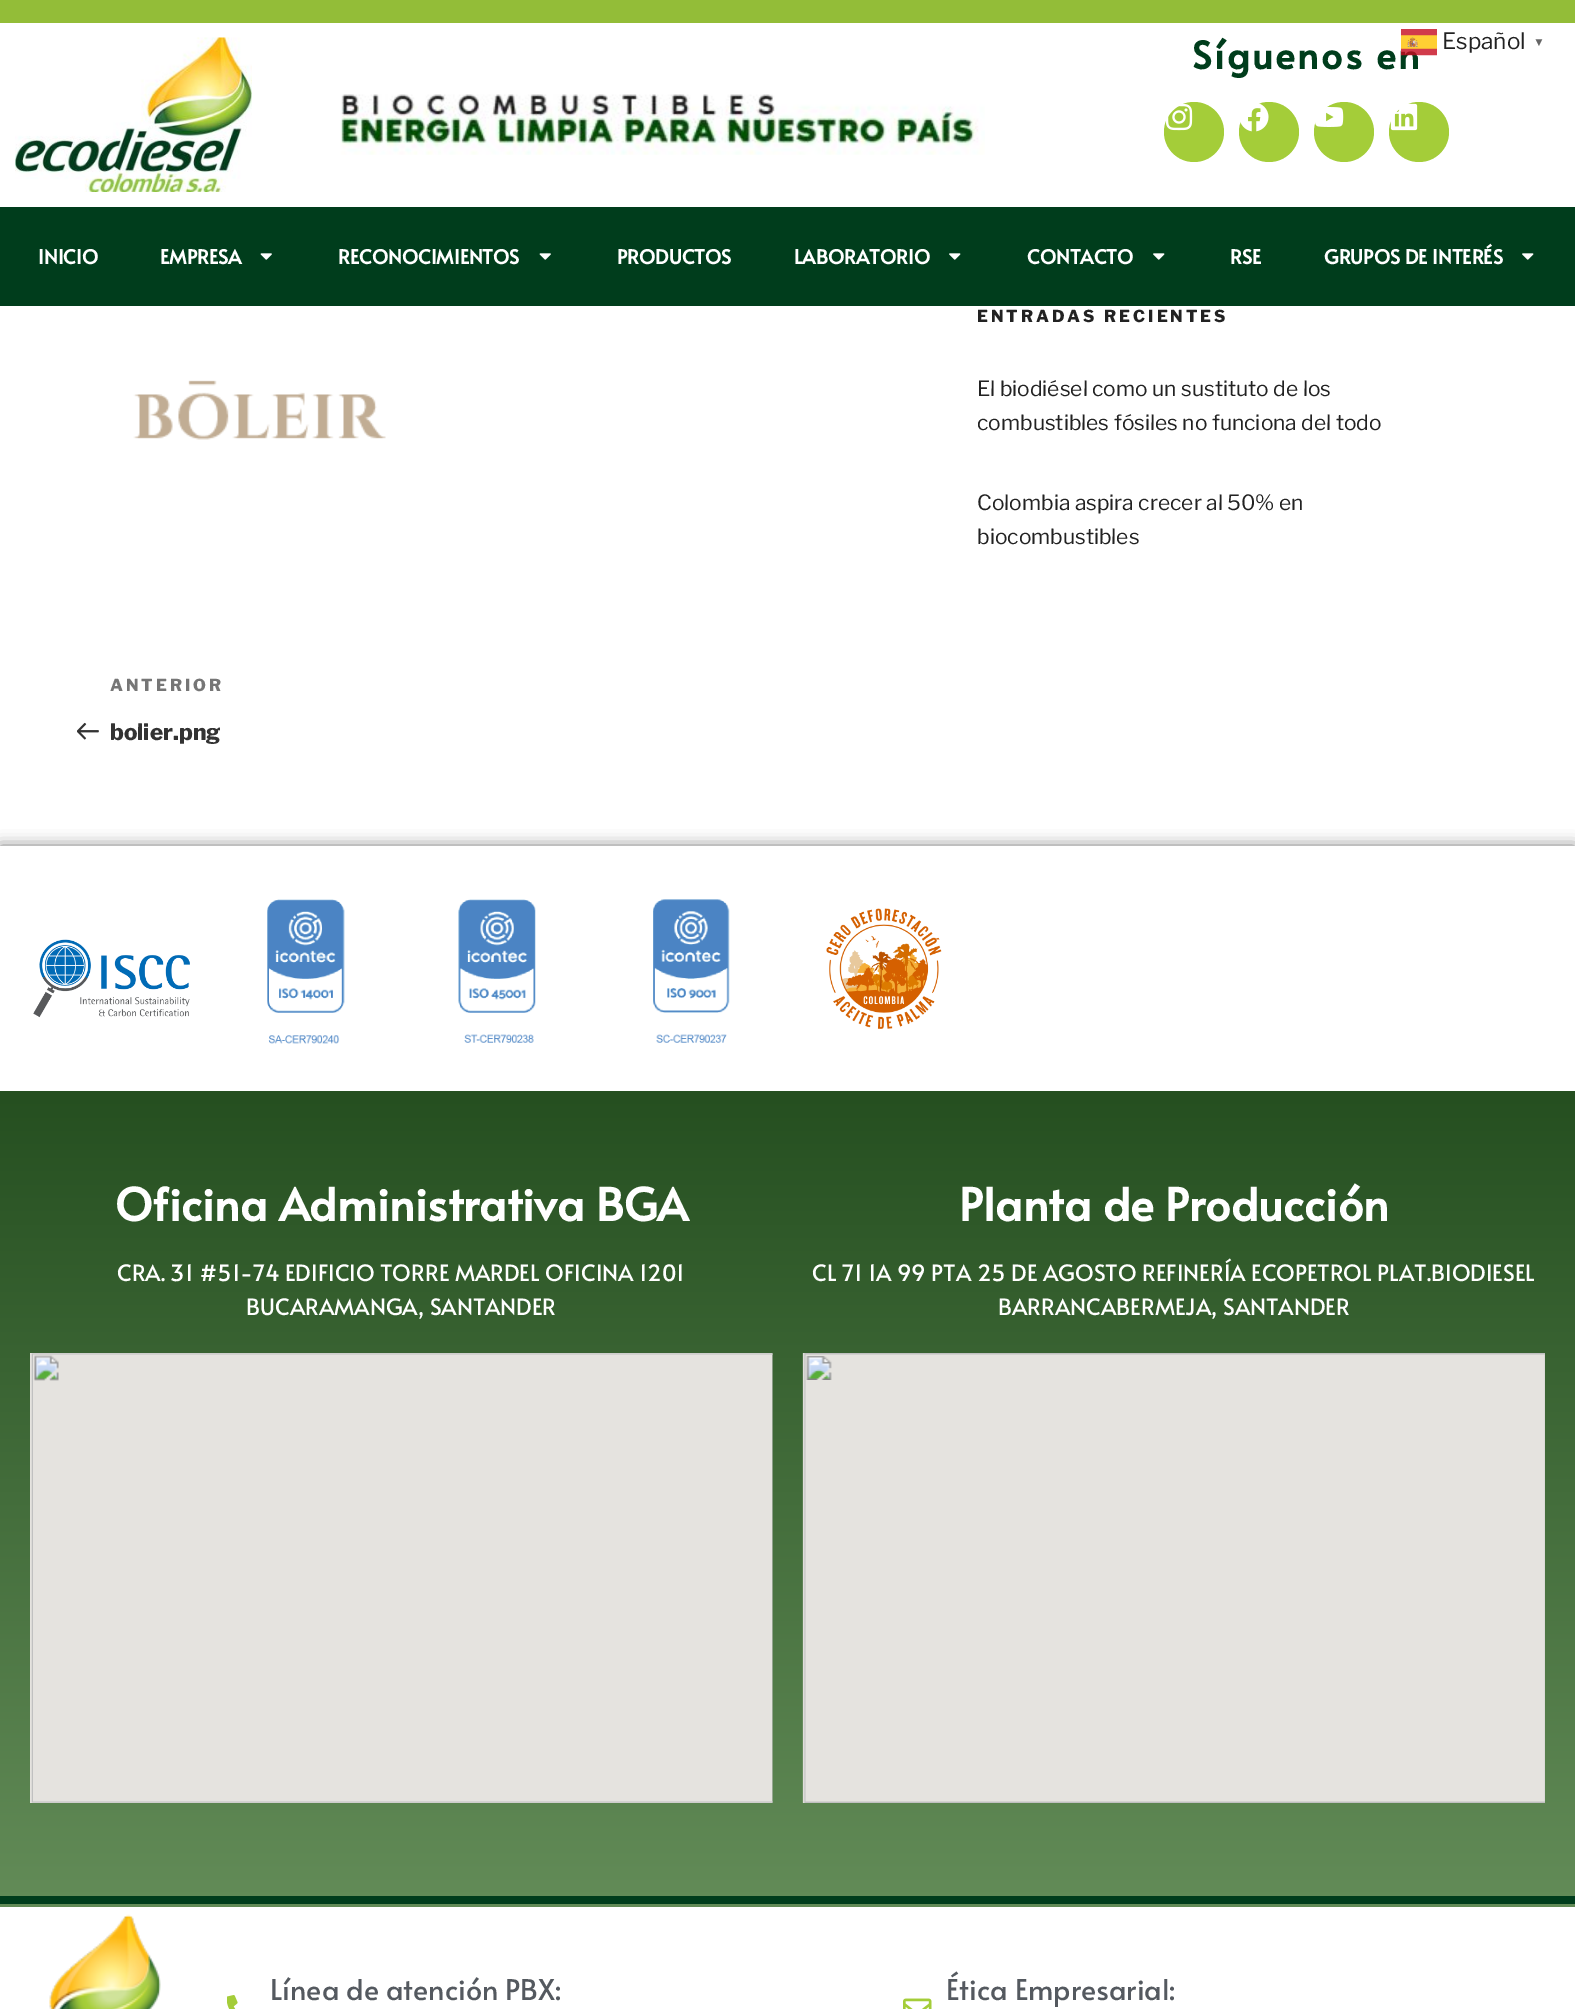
%!PS
<< /PageSize [1575 2009] /PageUsesTransparency true >> setpagedevice
/rgb { 3 { 255 div 3 1 roll } repeat setrgbcolor } def
/font { [ exch dup neg 0 0 3 -1 roll 0 0 ] selectfont } def
/alpha { dup .setfillconstantalpha .setstrokeconstantalpha } def
/circle { newpath 0 360 arc closepath } def
/roundrect { 5 dict begin { /r /h /w /y /x } { exch def } forall
  x r add y moveto x w add y 2 copy h add r arct x w add y h add x 1 index r arct
  x y h add x y r arct x y 2 copy exch w add exch r arct closepath end } def
/shadow { 12 dict begin { /a /b /q /h /w /y /x } { exch def } forall gsave /was 0 def
  9 -2 -9 { dup b mul 4 div /e exch def 1 sub .425 mul 2.718 exch exp 1 add a .99 .min exch div /now exch def
    1 1 now sub 1 was sub div sub alpha /was now def
    w h .min e 2 mul add 0 gt { x e sub y e sub w e 2 mul add h e 2 mul add
      q e add b .6 mul add w h .min 2 div e add .min 0 .max roundrect fill } if } for grestore end } def
/picture { 5 dict begin { /h /w /y /x /name } { exch def } forall
  gsave x y translate w h scale
  w h 8 [w 0 0 h 0 0] name (r) file false 3 colorimage grestore end } def
0 .pushpdf14devicefilter
0 2009 translate 1 -1 scale
4 setmiterlimit
255 255 255 rgb
0 0 1575 2009 rectfill
147 189 56 rgb
0 0 1575 23 rectfill
(img/2.rgb) 15 37 237 155 picture
164 205 57 rgb
1194 132 30 circle fill
(img/3.rgb) 1166 104 27 27 picture
1269 132 30 circle fill
(img/4.rgb) 1240 103 29 29 picture
1344 132 30 circle fill
(img/5.rgb) 1315 107 29 20 picture
1419 132 30 circle fill
(img/6.rgb) 1390 103 28 28 picture
(img/7.rgb) 340 94 645 61 picture
0 61 28 rgb
0 207 1575 99 rectfill
(img/8.rgb) 260 253 12 7 picture
(img/8.rgb) 539 253 12 7 picture
(img/9.rgb) 949 253 12 7 picture
(img/9.rgb) 1153 253 12 7 picture
(img/9.rgb) 1522 253 12 7 picture
(img/10.rgb) 133 380 253 60 picture
(img/11.rgb) 77 722 22 18 picture
gsave
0 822 moveto 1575 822 lineto 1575 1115 lineto 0 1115 lineto closepath 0 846 moveto 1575 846 lineto 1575 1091 lineto 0 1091 lineto closepath eoclip newpath
0 0 0 rgb
0 846 1575 245 0 7.5 0.5 shadow
grestore
(img/12.rgb) 33 939 157 79 picture
(img/13.rgb) 267 899 78 145 picture
(img/14.rgb) 458 899 78 144 picture
(img/15.rgb) 653 899 77 144 picture
(img/16.rgb) 826 908 116 121 picture
gsave 0 1091 moveto 1575 1091 lineto 1575 1893 lineto 0 1893 lineto closepath clip newpath
<< /ShadingType 2 /ColorSpace /DeviceRGB /Coords [788 1091 788 1893] /Extend [true true] /Function << /FunctionType 2 /Domain [0 1] /C0 [0.145 0.31 0.125] /C1 [0.384 0.545 0.341] /N 1 >> >> shfill grestore
(img/17.rgb) 30 1353 743 450 picture
(img/18.rgb) 802 1353 743 450 picture
98 139 87 rgb
0 1893 1575 14 rectfill
0 61 28 rgb
0 1896 1575 8 rectfill
(img/19.rgb) 49 1914 112 95 picture
(img/20.rgb) 227 1995 11 14 picture
(img/21.rgb) 903 1998 29 11 picture
/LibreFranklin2-Thin 22.5 font
34 34 34 rgb
1442 49 moveto (Español) show
/LiberationSans-Bold 12 font
102 102 102 rgb
1533 46 moveto (▼) show
/Alata-Bold 37.5 font
0 61 28 rgb
1192 69 moveto 2.4 0 (Síguenos en) ashow
(img/1.rgb) 1401 29 36 27 picture
/Alata-Bold 19.5 font
255 255 255 rgb
[
  [(INICIO) 38 264]
  [(EMPRESA) 160 264]
  [(RECONOCIMIENTOS) 338 264]
  [(PRODUCTOS) 617 264]
  [(LABORATORIO) 794 264]
  [(CONTACTO) 1027 264]
  [(RSE) 1230 264]
  [(GRUPOS DE INTERÉS) 1324 264]
] { aload pop moveto show } forall
/LibreFranklin-Thin 16.5 font
34 34 34 rgb
977 322 moveto 3 0 (ENTRADAS RECIENTES) ashow
/LibreFranklin2-Thin 21 font
[
  [(El biodiésel como un sustituto de los) 977 396]
  [(combustibles fósiles no funciona del todo) 977 430]
  [(Colombia aspira crecer al 50% en) 977 510]
  [(biocombustibles) 977 544]
] { aload pop moveto show } forall
/LibreFranklin-Thin 16.5 font
118 118 118 rgb
110 691 moveto 3 0 (ANTERIOR) ashow
/LibreFranklin-Thin 22.5 font
51 51 51 rgb
110 740 moveto (bolier.png) show
/Alata-Bold 45 font
255 255 255 rgb
115 1221 moveto (Oficina Administrativa BGA) show
/Alata-Regular 22.5 font
117 1281 moveto (CRA. 31 #51-74 EDIFICIO TORRE MARDEL OFICINA 1201) show
246 1315 moveto (BUCARAMANGA, SANTANDER) show
/Alata-Bold 45 font
959 1221 moveto (Planta de Producción) show
/Alata-Regular 22.5 font
812 1281 moveto (CL 71 1A 99 PTA 25 DE AGOSTO REFINERÍA ECOPETROL PLAT.BIODIESEL) show
998 1315 moveto (BARRANCABERMEJA, SANTANDER) show
/Alata-Regular 28.5 font
84 89 95 rgb
270 2000 moveto (Línea de atención PBX:) show
946 2000 moveto (Ética Empresarial:) show
.poppdf14devicefilter showpage
